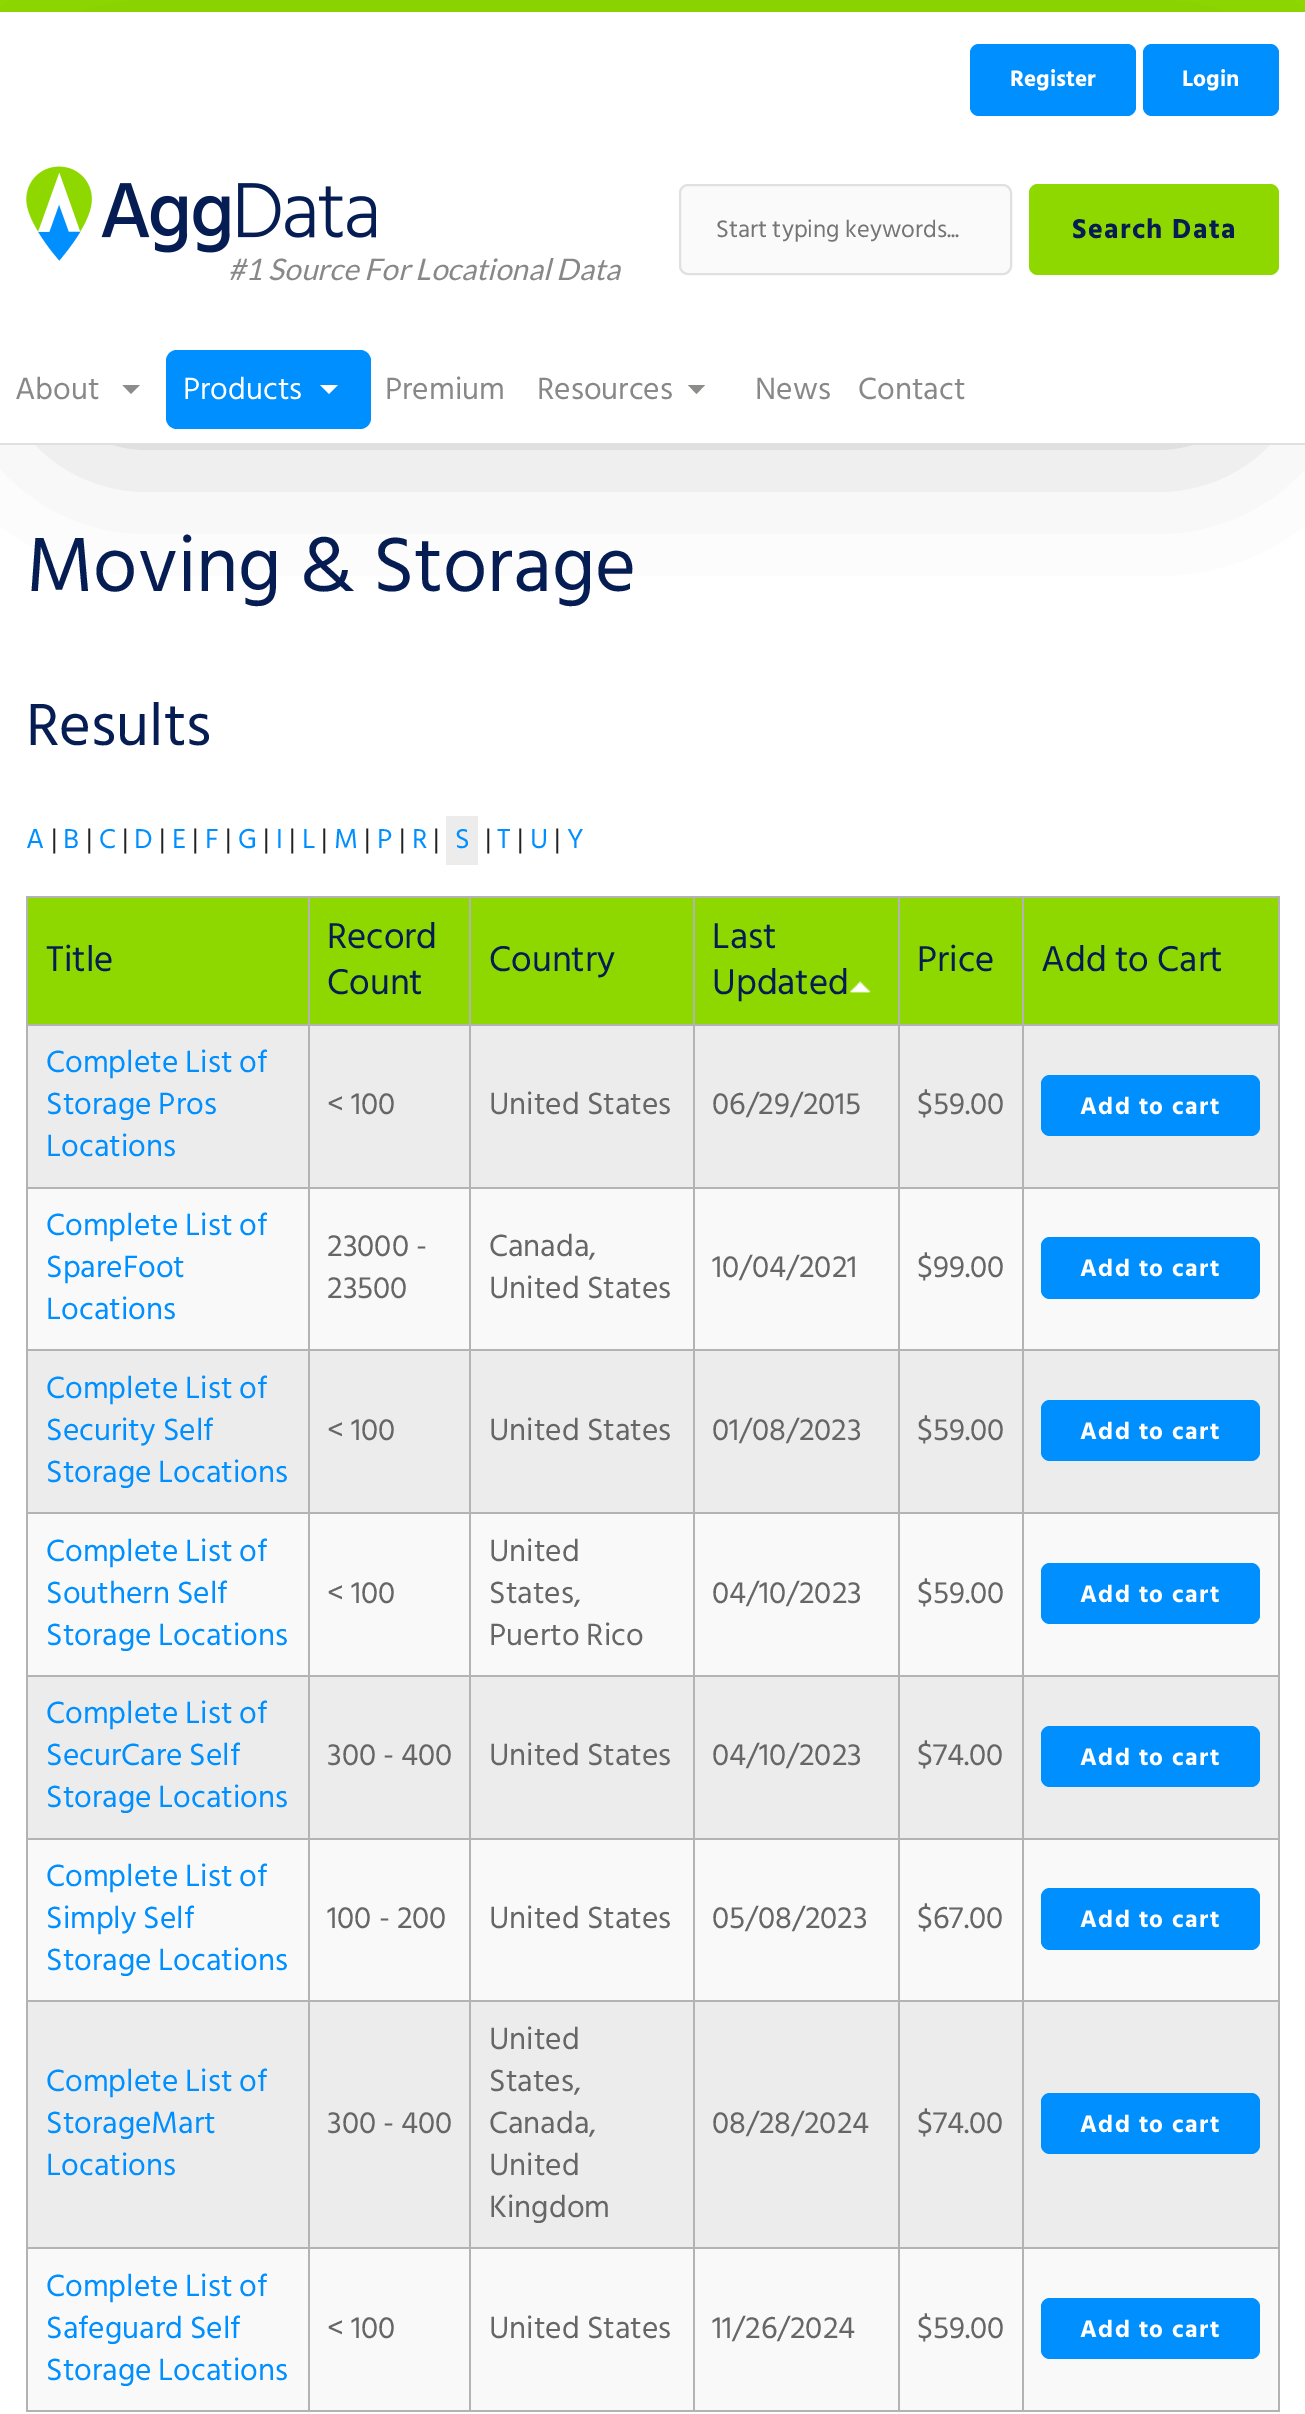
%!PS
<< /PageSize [1305 2414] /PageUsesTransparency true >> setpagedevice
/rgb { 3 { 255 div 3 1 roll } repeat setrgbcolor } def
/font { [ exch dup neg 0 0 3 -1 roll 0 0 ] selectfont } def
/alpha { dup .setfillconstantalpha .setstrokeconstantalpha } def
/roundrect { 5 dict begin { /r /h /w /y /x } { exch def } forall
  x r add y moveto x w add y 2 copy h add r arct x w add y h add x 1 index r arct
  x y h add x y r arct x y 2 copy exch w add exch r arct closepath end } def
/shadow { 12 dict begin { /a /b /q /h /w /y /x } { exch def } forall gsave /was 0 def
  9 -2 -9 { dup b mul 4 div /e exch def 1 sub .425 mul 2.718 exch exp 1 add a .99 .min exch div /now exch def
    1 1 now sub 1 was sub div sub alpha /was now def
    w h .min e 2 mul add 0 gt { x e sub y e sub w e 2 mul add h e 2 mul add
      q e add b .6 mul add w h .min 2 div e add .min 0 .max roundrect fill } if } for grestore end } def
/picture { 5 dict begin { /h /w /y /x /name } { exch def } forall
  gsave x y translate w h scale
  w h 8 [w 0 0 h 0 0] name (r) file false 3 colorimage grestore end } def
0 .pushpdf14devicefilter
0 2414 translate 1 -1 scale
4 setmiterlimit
255 255 255 rgb
0 0 1305 2414 rectfill
142 216 0 rgb
0 0 1305 12 rectfill
gsave
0 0 moveto 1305 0 lineto 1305 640 lineto 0 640 lineto closepath 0 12 moveto 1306 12 lineto 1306 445 lineto 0 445 lineto closepath eoclip newpath
0 0 0 rgb
96 147 1113 240 0 84 0.41 shadow
grestore
224 224 224 rgb
0 443 1305 2 rectfill
0 143 255 rgb
970 44 166 72 9 roundrect fill
1143 44 136 72 9 roundrect fill
250 250 250 rgb
680 185 331 89 8 roundrect gsave fill grestore
224 224 224 rgb
2 setlinewidth
stroke
142 216 0 rgb
1029 184 250 91 9 roundrect fill
140 140 138 rgb
122.5 385 moveto 140 385 lineto 131 394 lineto closepath fill
0 143 255 rgb
166 350 205 79 11 roundrect fill
255 255 255 rgb
320 385 moveto 338 385 lineto 329 394 lineto closepath fill
140 140 138 rgb
688 385 moveto 705 385 lineto 696.5 394 lineto closepath fill
[
  [446 816 32 49 236 236 236]
  [28 898 280 126 142 216 0]
  [1022 896 257 2 179 179 179]
  [1022 1024 257 2 179 179 179]
  [1022 1187 257 2 179 179 179]
  [28 1189 1250 160 249 249 249]
  [1022 1349 257 2 179 179 179]
  [1022 1512 257 2 179 179 179]
  [28 1514 1250 161 249 249 249]
  [1022 1675 257 2 179 179 179]
  [1022 1838 257 2 179 179 179]
  [28 1840 1250 160 249 249 249]
  [1022 2000 257 2 179 179 179]
  [1022 2247 257 2 179 179 179]
  [28 2249 1250 161 249 249 249]
  [1278 2247 2 165 179 179 179]
  [1022 2410 257 2 179 179 179]
  [1022 2247 2 165 179 179 179]
  [898 2247 126 2 179 179 179]
  [1022 2000 2 249 179 179 179]
  [898 2000 126 2 179 179 179]
  [1022 1838 2 164 179 179 179]
  [898 1838 126 2 179 179 179]
  [1022 1675 2 164 179 179 179]
  [898 1675 126 2 179 179 179]
  [1022 1512 2 165 179 179 179]
  [898 1512 126 2 179 179 179]
  [1022 1349 2 165 179 179 179]
  [898 1349 126 2 179 179 179]
  [1022 1187 2 164 179 179 179]
  [898 1187 126 2 179 179 179]
  [1022 1024 2 164 179 179 179]
  [898 1024 126 2 179 179 179]
  [1022 896 2 130 179 179 179]
  [898 896 126 2 179 179 179]
  [898 2410 126 2 179 179 179]
  [898 2247 2 165 179 179 179]
  [693 2247 207 2 179 179 179]
  [898 2000 2 249 179 179 179]
  [693 2000 207 2 179 179 179]
  [898 1838 2 164 179 179 179]
  [693 1838 207 2 179 179 179]
  [898 1675 2 164 179 179 179]
  [693 1675 207 2 179 179 179]
  [898 1512 2 165 179 179 179]
  [693 1512 207 2 179 179 179]
  [898 1349 2 165 179 179 179]
  [693 1349 207 2 179 179 179]
  [898 1187 2 164 179 179 179]
  [693 1187 207 2 179 179 179]
  [898 1024 2 164 179 179 179]
  [693 1024 207 2 179 179 179]
  [898 896 2 130 179 179 179]
  [693 896 207 2 179 179 179]
  [693 2410 207 2 179 179 179]
  [693 2247 2 165 179 179 179]
  [469 2247 226 2 179 179 179]
  [693 2000 2 249 179 179 179]
  [469 2000 226 2 179 179 179]
  [693 1838 2 164 179 179 179]
  [469 1838 226 2 179 179 179]
  [693 1675 2 164 179 179 179]
  [469 1675 226 2 179 179 179]
  [693 1512 2 165 179 179 179]
  [469 1512 226 2 179 179 179]
  [693 1349 2 165 179 179 179]
  [469 1349 226 2 179 179 179]
  [693 1187 2 164 179 179 179]
  [469 1187 226 2 179 179 179]
  [693 1024 2 164 179 179 179]
  [469 1024 226 2 179 179 179]
  [693 896 2 130 179 179 179]
  [469 896 226 2 179 179 179]
  [469 2410 226 2 179 179 179]
  [469 2247 2 165 179 179 179]
  [308 2247 163 2 179 179 179]
  [469 2000 2 249 179 179 179]
  [308 2000 163 2 179 179 179]
  [469 1838 2 164 179 179 179]
  [308 1838 163 2 179 179 179]
  [469 1675 2 164 179 179 179]
  [308 1675 163 2 179 179 179]
  [469 1512 2 165 179 179 179]
  [308 1512 163 2 179 179 179]
  [469 1349 2 165 179 179 179]
  [308 1349 163 2 179 179 179]
  [469 1187 2 164 179 179 179]
  [308 1187 163 2 179 179 179]
  [469 1024 2 164 179 179 179]
  [308 1024 163 2 179 179 179]
  [469 896 2 130 179 179 179]
  [308 896 163 2 179 179 179]
  [308 2410 163 2 179 179 179]
  [308 2247 2 165 179 179 179]
  [26 2247 284 2 179 179 179]
  [308 2000 2 249 179 179 179]
  [26 2000 284 2 179 179 179]
  [308 1838 2 164 179 179 179]
  [26 1838 284 2 179 179 179]
  [308 1675 2 164 179 179 179]
  [26 1675 284 2 179 179 179]
  [308 1512 2 165 179 179 179]
  [26 1512 284 2 179 179 179]
  [308 1349 2 165 179 179 179]
  [26 1349 284 2 179 179 179]
  [308 1187 2 164 179 179 179]
  [26 1187 284 2 179 179 179]
  [308 1024 2 164 179 179 179]
  [26 1024 284 2 179 179 179]
  [308 896 2 130 179 179 179]
  [26 896 284 2 179 179 179]
  [26 2410 284 2 179 179 179]
  [26 2247 2 165 179 179 179]
  [26 2000 2 249 179 179 179]
  [26 1838 2 164 179 179 179]
  [26 1675 2 164 179 179 179]
  [26 1512 2 165 179 179 179]
  [26 1349 2 165 179 179 179]
  [26 1187 2 164 179 179 179]
  [26 1024 2 164 179 179 179]
  [26 896 2 130 179 179 179]
  [310 898 159 126 142 216 0]
  [471 898 222 126 142 216 0]
  [695 898 203 126 142 216 0]
] { aload pop rgb rectfill } forall
(img/2.rgb) 850 981 21 12 picture
[
  [900 898 122 126 142 216 0]
  [1024 898 254 126 142 216 0]
  [1278 2000 2 249 179 179 179]
  [1278 1838 2 164 179 179 179]
  [1278 1675 2 164 179 179 179]
  [1278 1512 2 165 179 179 179]
  [1278 1349 2 165 179 179 179]
  [1278 1187 2 164 179 179 179]
  [1278 1024 2 164 179 179 179]
  [1278 896 2 130 179 179 179]
  [28 1026 280 161 236 236 236]
  [310 1026 159 161 236 236 236]
  [471 1026 222 161 236 236 236]
  [695 1026 203 161 236 236 236]
  [900 1026 122 161 236 236 236]
  [1024 1026 254 161 236 236 236]
] { aload pop rgb rectfill } forall
0 143 255 rgb
1041 1075 219 61 9 roundrect fill
1041 1237 219 62 9 roundrect fill
[
  [28 1351 280 161 236 236 236]
  [310 1351 159 161 236 236 236]
  [471 1351 222 161 236 236 236]
  [695 1351 203 161 236 236 236]
  [900 1351 122 161 236 236 236]
  [1024 1351 254 161 236 236 236]
] { aload pop rgb rectfill } forall
0 143 255 rgb
1041 1400 219 61 9 roundrect fill
1041 1563 219 61 9 roundrect fill
[
  [28 1677 280 161 236 236 236]
  [310 1677 159 161 236 236 236]
  [471 1677 222 161 236 236 236]
  [695 1677 203 161 236 236 236]
  [900 1677 122 161 236 236 236]
  [1024 1677 254 161 236 236 236]
] { aload pop rgb rectfill } forall
0 143 255 rgb
1041 1726 219 61 9 roundrect fill
1041 1888 219 62 9 roundrect fill
[
  [28 2002 280 245 236 236 236]
  [310 2002 159 245 236 236 236]
  [471 2002 222 245 236 236 236]
  [695 2002 203 245 236 236 236]
  [900 2002 122 245 236 236 236]
  [1024 2002 254 245 236 236 236]
] { aload pop rgb rectfill } forall
0 143 255 rgb
1041 2093 219 61 9 roundrect fill
1041 2298 219 61 9 roundrect fill
/HindSiliguri-Bold 23 font
255 255 255 rgb
1010 86 moveto (Register) show
1182 86 moveto (Login) show
/HindSiliguri-Regular 24.5 font
117 117 117 rgb
716 237 moveto (Start typing keywords...) show
/HindSiliguri-Bold 28 font
6 29 84 rgb
1072 238 moveto 1.4 0 (Search Data) ashow
/Lato-Italic 29.75 font
136 136 136 rgb
228 280 moveto (#1 Source For Locational Data) show
(img/1.rgb) 26 166 350 95 picture
/HindSiliguri-Regular 31.5 font
15 399 moveto (About) show
255 255 255 rgb
183 399 moveto (Products) show
136 136 136 rgb
[
  [(Premium) 385 399]
  [(Resources) 537 399]
  [(News) 755 399]
  [(Contact) 858 399]
] { aload pop moveto show } forall
/HindSiliguri-Regular 78.75 font
6 29 84 rgb
26 591 moveto (Moving & Storage) show
/HindSiliguri-Regular 61 font
26 745 moveto (Results) show
/HindSiliguri-Regular 28 font
0 143 255 rgb
26 848 moveto (A) show
34 34 34 rgb
51 848 moveto (|) show
0 143 255 rgb
63 848 moveto (B) show
34 34 34 rgb
86 848 moveto (|) show
0 143 255 rgb
99 848 moveto (C) show
34 34 34 rgb
122 848 moveto (|) show
0 143 255 rgb
134 848 moveto (D) show
34 34 34 rgb
159 848 moveto (|) show
0 143 255 rgb
172 848 moveto (E) show
34 34 34 rgb
192 848 moveto (|) show
0 143 255 rgb
205 848 moveto (F) show
34 34 34 rgb
225 848 moveto (|) show
0 143 255 rgb
238 848 moveto (G) show
34 34 34 rgb
263 848 moveto (|) show
0 143 255 rgb
276 848 moveto (I) show
34 34 34 rgb
289 848 moveto (|) show
0 143 255 rgb
302 848 moveto (L) show
34 34 34 rgb
321 848 moveto (|) show
0 143 255 rgb
334 848 moveto (M) show
34 34 34 rgb
364 848 moveto (|) show
0 143 255 rgb
377 848 moveto (P) show
34 34 34 rgb
399 848 moveto (|) show
0 143 255 rgb
412 848 moveto (R) show
34 34 34 rgb
433 848 moveto (|) show
0 143 255 rgb
455 848 moveto (S) show
34 34 34 rgb
485 848 moveto (|) show
0 143 255 rgb
497 848 moveto (T) show
34 34 34 rgb
517 848 moveto (|) show
0 143 255 rgb
530 848 moveto (U) show
34 34 34 rgb
554 848 moveto (|) show
0 143 255 rgb
567 848 moveto (Y) show
/HindSiliguri-Regular 36.75 font
6 29 84 rgb
[
  [(Title) 46 971]
  [(Record) 327 948]
  [(Count) 327 994]
  [(Country) 489 971]
  [(Last) 712 948]
  [(Updated) 712 994]
  [(Price) 917 971]
  [(Add to Cart) 1041 971]
] { aload pop moveto show } forall
/HindSiliguri-Regular 31.5 font
0 143 255 rgb
[
  [(Complete List of) 46 1072]
  [(Storage Pros) 46 1114]
  [(Locations) 46 1156]
] { aload pop moveto show } forall
102 102 102 rgb
[
  [(< 100) 327 1114]
  [(United States) 489 1114]
  [(06/29/2015) 712 1114]
  [($59.00) 917 1114]
] { aload pop moveto show } forall
/HindSiliguri-Bold 24.5 font
255 255 255 rgb
1080 1114 moveto 1.4 0 (Add to cart) ashow
/HindSiliguri-Regular 31.5 font
0 143 255 rgb
[
  [(Complete List of) 46 1235]
  [(SpareFoot) 46 1277]
  [(Locations) 46 1319]
] { aload pop moveto show } forall
102 102 102 rgb
[
  [(23000 -) 327 1256]
  [(23500) 327 1298]
  [(Canada,) 489 1256]
  [(United States) 489 1298]
  [(10/04/2021) 712 1277]
  [($99.00) 917 1277]
] { aload pop moveto show } forall
/HindSiliguri-Bold 24.5 font
255 255 255 rgb
1080 1276 moveto 1.4 0 (Add to cart) ashow
/HindSiliguri-Regular 31.5 font
0 143 255 rgb
[
  [(Complete List of) 46 1398]
  [(Security Self) 46 1440]
  [(Storage Locations) 46 1482]
] { aload pop moveto show } forall
102 102 102 rgb
[
  [(< 100) 327 1440]
  [(United States) 489 1440]
  [(01/08/2023) 712 1440]
  [($59.00) 917 1440]
] { aload pop moveto show } forall
/HindSiliguri-Bold 24.5 font
255 255 255 rgb
1080 1439 moveto 1.4 0 (Add to cart) ashow
/HindSiliguri-Regular 31.5 font
0 143 255 rgb
[
  [(Complete List of) 46 1561]
  [(Southern Self) 46 1603]
  [(Storage Locations) 46 1645]
] { aload pop moveto show } forall
102 102 102 rgb
[
  [(< 100) 327 1603]
  [(United) 489 1561]
  [(States,) 489 1603]
  [(Puerto Rico) 489 1645]
  [(04/10/2023) 712 1603]
  [($59.00) 917 1603]
] { aload pop moveto show } forall
/HindSiliguri-Bold 24.5 font
255 255 255 rgb
1080 1602 moveto 1.4 0 (Add to cart) ashow
/HindSiliguri-Regular 31.5 font
0 143 255 rgb
[
  [(Complete List of) 46 1723]
  [(SecurCare Self) 46 1765]
  [(Storage Locations) 46 1807]
] { aload pop moveto show } forall
102 102 102 rgb
[
  [(300 - 400) 327 1765]
  [(United States) 489 1765]
  [(04/10/2023) 712 1765]
  [($74.00) 917 1765]
] { aload pop moveto show } forall
/HindSiliguri-Bold 24.5 font
255 255 255 rgb
1080 1765 moveto 1.4 0 (Add to cart) ashow
/HindSiliguri-Regular 31.5 font
0 143 255 rgb
[
  [(Complete List of) 46 1886]
  [(Simply Self) 46 1928]
  [(Storage Locations) 46 1970]
] { aload pop moveto show } forall
102 102 102 rgb
[
  [(100 - 200) 327 1928]
  [(United States) 489 1928]
  [(05/08/2023) 712 1928]
  [($67.00) 917 1928]
] { aload pop moveto show } forall
/HindSiliguri-Bold 24.5 font
255 255 255 rgb
1080 1927 moveto 1.4 0 (Add to cart) ashow
/HindSiliguri-Regular 31.5 font
0 143 255 rgb
[
  [(Complete List of) 46 2091]
  [(StorageMart) 46 2133]
  [(Locations) 46 2175]
] { aload pop moveto show } forall
102 102 102 rgb
[
  [(300 - 400) 327 2133]
  [(United) 489 2049]
  [(States,) 489 2091]
  [(Canada,) 489 2133]
  [(United) 489 2175]
  [(Kingdom) 489 2217]
  [(08/28/2024) 712 2133]
  [($74.00) 917 2133]
] { aload pop moveto show } forall
/HindSiliguri-Bold 24.5 font
255 255 255 rgb
1080 2132 moveto 1.4 0 (Add to cart) ashow
/HindSiliguri-Regular 31.5 font
0 143 255 rgb
[
  [(Complete List of) 46 2296]
  [(Safeguard Self) 46 2338]
  [(Storage Locations) 46 2380]
] { aload pop moveto show } forall
102 102 102 rgb
[
  [(< 100) 327 2338]
  [(United States) 489 2338]
  [(11/26/2024) 712 2338]
  [($59.00) 917 2338]
] { aload pop moveto show } forall
/HindSiliguri-Bold 24.5 font
255 255 255 rgb
1080 2337 moveto 1.4 0 (Add to cart) ashow
.poppdf14devicefilter showpage
